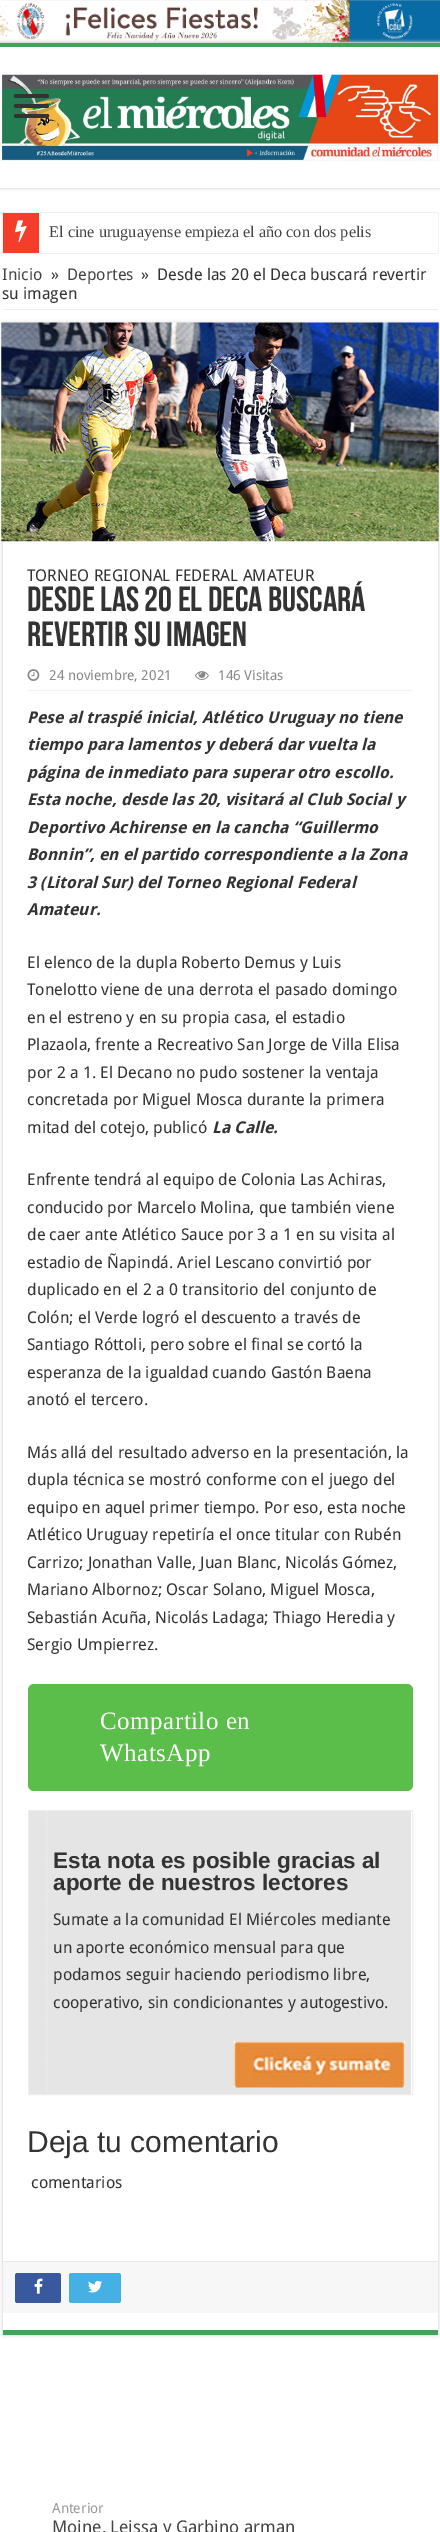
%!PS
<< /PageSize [440 2532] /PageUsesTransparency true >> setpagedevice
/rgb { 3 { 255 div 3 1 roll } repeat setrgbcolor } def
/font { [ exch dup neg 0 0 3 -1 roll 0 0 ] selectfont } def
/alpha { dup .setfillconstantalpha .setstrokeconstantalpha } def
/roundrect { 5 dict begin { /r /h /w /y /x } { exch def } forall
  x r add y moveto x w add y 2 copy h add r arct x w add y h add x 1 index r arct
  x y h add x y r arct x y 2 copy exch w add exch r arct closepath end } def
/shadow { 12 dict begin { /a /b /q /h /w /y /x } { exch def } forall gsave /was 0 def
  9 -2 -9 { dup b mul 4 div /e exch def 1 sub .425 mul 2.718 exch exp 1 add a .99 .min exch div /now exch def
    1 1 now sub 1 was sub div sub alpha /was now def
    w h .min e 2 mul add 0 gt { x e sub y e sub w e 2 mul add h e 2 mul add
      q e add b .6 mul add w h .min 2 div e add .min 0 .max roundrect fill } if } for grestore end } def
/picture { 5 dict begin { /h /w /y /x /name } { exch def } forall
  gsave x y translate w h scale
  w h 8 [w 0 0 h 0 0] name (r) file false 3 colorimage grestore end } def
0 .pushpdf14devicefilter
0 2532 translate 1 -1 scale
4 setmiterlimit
255 255 255 rgb
0 0 440 2532 rectfill
(img/1.rgb) 0 42 440 1 picture
(img/2.rgb) 0 0 440 43 picture
202 202 202 rgb
0 43 440 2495 0 2 1 shadow
255 255 255 rgb
0 188 440 2344 rectfill
202 202 202 rgb
0 43 440 145 0 2 1 shadow
255 255 255 rgb
0 47 440 141 rectfill
70 162 91 rgb
0 43 440 4 rectfill
(img/3.rgb) 0 74 440 88 picture
51 51 51 rgb
14 94 35 4 2 roundrect fill
14 104 35 4 2 roundrect fill
14 114 35 4 2 roundrect fill
202 202 202 rgb
3 213 435 40 0 0.5 1 shadow
255 255 255 rgb
39 213 399 40 rectfill
244 61 42 rgb
3 213 36 40 rectfill
(img/4.rgb) 15 220 12 22 picture
238 238 238 rgb
3 309 435 1 rectfill
202 202 202 rgb
3 323 435 2012 0 2 1 shadow
255 255 255 rgb
3 541 435 1789 rectfill
70 162 91 rgb
3 2330 435 5 rectfill
(img/5.rgb) 1 322 438 220 picture
242 242 242 rgb
28 690 385 1 rectfill
(img/6.rgb) 27 669 13 12 picture
(img/7.rgb) 195 671 14 9 picture
92 190 74 rgb
28 1684 385 107 6 roundrect fill
238 238 238 rgb
28.5 1810.5 384 284 rectstroke
229 229 229 rgb
29 1811 382 283 rectfill
238 238 238 rgb
1.2 setlinewidth
[1.25 1.25] 0 setdash
47 1811 moveto 47 2094 lineto stroke
(img/8.rgb) 233 2041 172 47 picture
247 247 247 rgb
3 2262 435 51 rectfill
234 234 234 rgb
3 2261 435 1 rectfill
57 89 159 rgb
15 2273 46 30 2.5 roundrect fill
(img/9.rgb) 34 2278 9 16 picture
69 176 227 rgb
69 2273 52 30 2.5 roundrect fill
(img/10.rgb) 88 2280 14 13 picture
/LiberationSerif-Regular 16.25 font
68 68 68 rgb
49 237 moveto (El cine uruguayense empieza el año con dos pelis) show
/DroidSans-Regular 16.25 font
2 280 moveto (Inicio) show
51 51 51 rgb
51 280 moveto (») show
68 68 68 rgb
67 280 moveto (Deportes) show
51 51 51 rgb
[
  [(») 141 280]
  [(Desde las 20 el Deca buscará revertir) 157 280]
  [(su imagen) 2 299]
  [(TORNEO REGIONAL FEDERAL AMATEUR) 27 581]
] { aload pop moveto show } forall
/BebasNeue-Bold 35 font
27 611 moveto (Desde las 20 el Deca buscará) show
27 646 moveto (revertir su imagen) show
/DroidSans-Regular 13.75 font
136 136 136 rgb
49 680 moveto (24 noviembre, 2021) show
218 680 moveto (146 Visitas) show
/DroidSans-BoldItalic 16.25 font
51 51 51 rgb
[
  [(Pese al traspié inicial, Atlético Uruguay no tiene) 27 723]
  [(tiempo para lamentos y deberá dar vuelta la) 27 750]
  [(página de inmediato para superar otro escollo.) 27 778]
  [(Esta noche, desde las 20, visitará al Club Social y) 27 805]
  [(Deportivo Achirense en la cancha “Guillermo) 27 833]
  [(Bonnin”, en el partido correspondiente a la Zona) 27 860]
  [(3 \(Litoral Sur\) del Torneo Regional Federal) 27 888]
  [(Amateur.) 27 915]
] { aload pop moveto show } forall
/DroidSans-Regular 16.25 font
[
  [(El elenco de la dupla Roberto Demus y Luis) 27 968]
  [(Tonelotto viene de una derrota el pasado domingo) 27 995]
  [(en el estreno y en su propia casa, el estadio) 27 1023]
  [(Plazaola, frente a Recreativo San Jorge de Villa Elisa) 27 1050]
  [(por 2 a 1. El Decano no pudo sostener la ventaja) 27 1078]
  [(concretada por Miguel Mosca durante la primera) 27 1105]
  [(mitad del cotejo, publicó) 27 1133]
] { aload pop moveto show } forall
/DroidSans-BoldItalic 16.25 font
212 1133 moveto (La Calle.) show
/DroidSans-Regular 16.25 font
[
  [(Enfrente tendrá al equipo de Colonia Las Achiras,) 27 1185]
  [(conducido por Marcelo Molina, que también viene) 27 1213]
  [(de caer ante Atlético Sauce por 3 a 1 en su visita al) 27 1240]
  [(estadio de Ñapindá. Ariel Lescano convirtió por) 27 1268]
  [(duplicado en el 2 a 0 transitorio del conjunto de) 27 1295]
  [(Colón; el Verde logró el descuento a través de) 27 1323]
  [(Santiago Róttoli, pero sobre el final se cortó la) 27 1350]
  [(esperanza de la igualdad cuando Gastón Baena) 27 1378]
  [(anotó el tercero.) 27 1405]
  [(Más allá del resultado adverso en la presentación, la) 27 1458]
  [(dupla técnica se mostró conforme con el juego del) 27 1485]
  [(equipo en aquel primer tiempo. Por eso, esta noche) 27 1513]
  [(Atlético Uruguay repetiría el once titular con Rubén) 27 1540]
  [(Carrizo; Jonathan Valle, Juan Blanc, Nicolás Gómez,) 27 1568]
  [(Mariano Albornoz; Oscar Solano, Miguel Mosca,) 27 1595]
  [(Sebastián Acuña, Nicolás Ladaga; Thiago Heredia y) 27 1623]
  [(Sergio Umpierrez.) 27 1650]
] { aload pop moveto show } forall
/LiberationSerif-Regular 25 font
255 255 255 rgb
100 1729 moveto 0.5 0 (Compartilo en) ashow
100 1761 moveto 0.5 0 (WhatsApp) ashow
/LiberationSans-Bold 22.5 font
51 51 51 rgb
53 1868 moveto (Esta nota es posible gracias al) show
53 1890 moveto (aporte de nuestros lectores) show
/DroidSans-Regular 16.25 font
[
  [(Sumate a la comunidad El Miércoles mediante) 53 1925]
  [(un aporte económico mensual para que) 53 1953]
  [(podamos seguir haciendo periodismo libre,) 53 1980]
  [(cooperativo, sin condicionantes y autogestivo.) 53 2008]
] { aload pop moveto show } forall
/LiberationSans-Regular 30 font
27 2152 moveto (Deja tu comentario) show
/DroidSans-Regular 16.25 font
31 2188 moveto (comentarios) show
/DroidSans-Regular 14 font
153 153 153 rgb
52 2513 moveto (Anterior) show
/DroidSans-Regular 17.5 font
68 68 68 rgb
52 2533 moveto (Moine, Leissa y Garbino arman) show
.poppdf14devicefilter showpage
